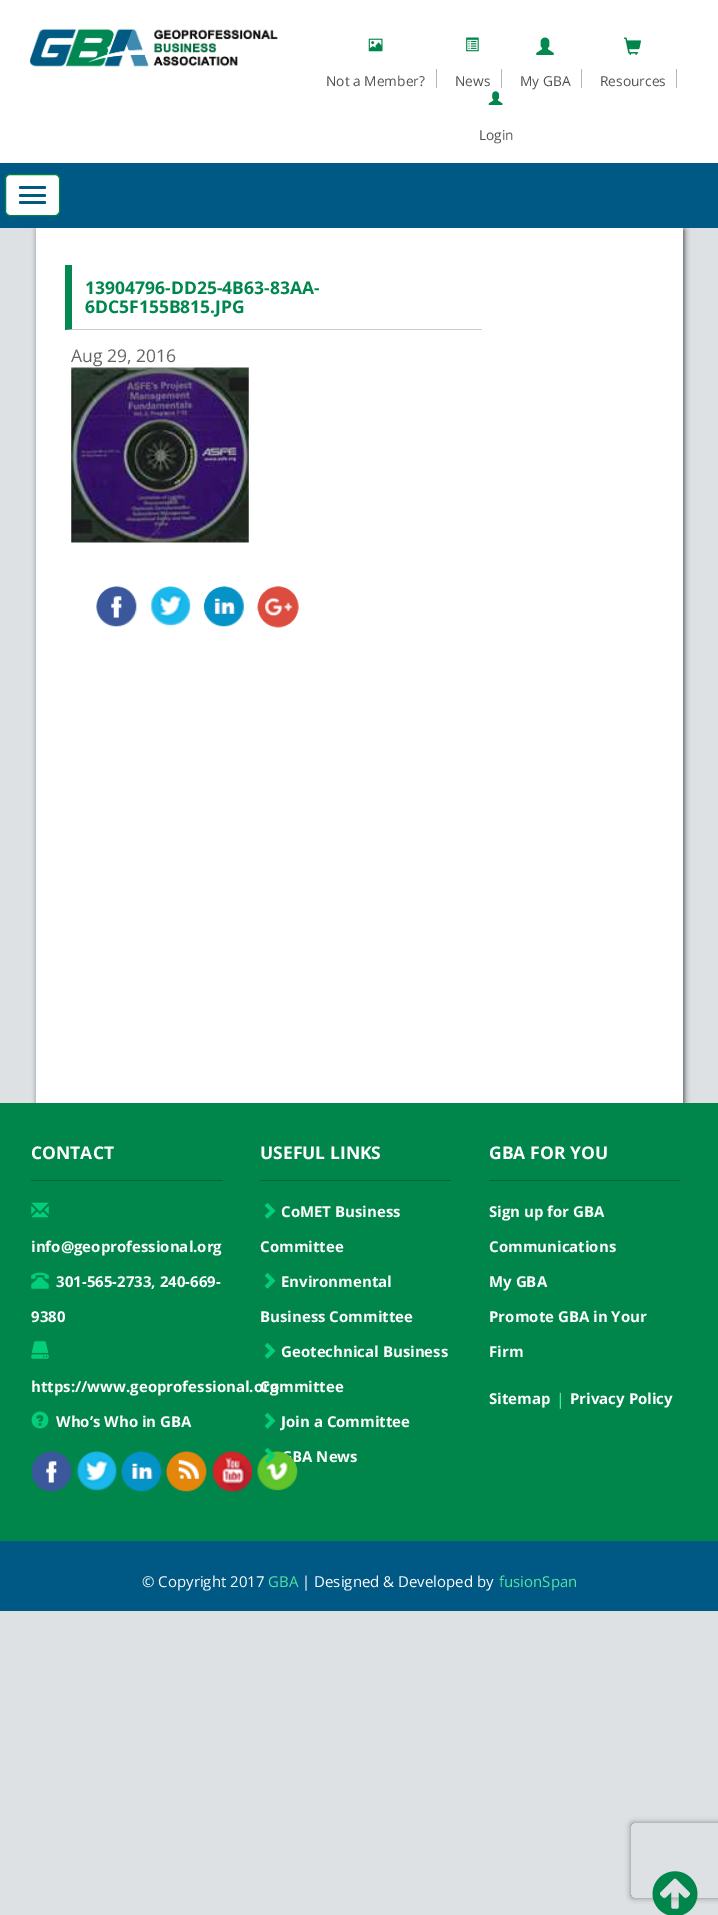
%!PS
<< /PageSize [718 1915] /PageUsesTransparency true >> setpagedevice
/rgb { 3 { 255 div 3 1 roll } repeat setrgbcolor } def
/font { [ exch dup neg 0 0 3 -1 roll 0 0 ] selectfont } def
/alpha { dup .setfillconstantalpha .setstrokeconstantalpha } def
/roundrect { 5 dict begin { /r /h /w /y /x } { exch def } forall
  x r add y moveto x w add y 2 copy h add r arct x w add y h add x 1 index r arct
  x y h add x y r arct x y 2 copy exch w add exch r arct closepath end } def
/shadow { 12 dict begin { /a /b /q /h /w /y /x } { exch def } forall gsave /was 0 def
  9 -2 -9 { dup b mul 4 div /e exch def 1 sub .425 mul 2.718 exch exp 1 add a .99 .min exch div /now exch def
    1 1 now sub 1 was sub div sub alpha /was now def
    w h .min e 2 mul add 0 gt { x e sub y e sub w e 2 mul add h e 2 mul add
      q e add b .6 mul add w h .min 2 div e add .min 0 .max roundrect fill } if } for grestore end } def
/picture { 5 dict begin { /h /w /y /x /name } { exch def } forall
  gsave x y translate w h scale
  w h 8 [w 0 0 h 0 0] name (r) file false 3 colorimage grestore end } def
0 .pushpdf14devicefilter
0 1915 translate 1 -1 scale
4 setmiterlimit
222 225 227 rgb
0 0 718 1915 rectfill
255 255 255 rgb
0 0 718 163 rectfill
(img/1.rgb) 30 28 248 39 picture
(img/2.rgb) 368 38 15 14 picture
182 182 182 rgb
436 69 1 19 rectfill
(img/3.rgb) 466 37 13 15 picture
501 69 1 19 rectfill
(img/4.rgb) 536 37 18 18 picture
581 69 1 19 rectfill
(img/5.rgb) 623 37 18 18 picture
676 69 1 19 rectfill
(img/6.rgb) 488 91 15 14 picture
0 0 0 rgb
38 230 646 875 0 3 0.75 shadow
0 89 132 rgb
0 163 718 65 rectfill
255 255 255 rgb
5.5 174.5 54 41 4.5 roundrect gsave fill grestore
0 132 68 rgb
stroke
0 89 132 rgb
19 186 27 3 1.5 roundrect fill
19 194 27 3 1.5 roundrect fill
19 201 27 3 1.5 roundrect fill
255 255 255 rgb
36 228 647 875 rectfill
204 204 204 rgb
482 330 moveto 65 330 lineto 72 329 lineto 482 329 lineto closepath fill
3 136 81 rgb
65 330 moveto 65 265 lineto 72 265 lineto 72 329 lineto closepath fill
(img/7.rgb) 71 367 178 176 picture
(img/8.rgb) 96 586 41 41 picture
(img/9.rgb) 151 586 40 40 picture
(img/10.rgb) 203 586 41 41 picture
(img/11.rgb) 257 586 42 42 picture
0 133 75 rgb
0 1103 718 438 rectfill
3 98 59 rgb
31 1180 192 1 rectfill
(img/12.rgb) 31 1202 18 16 picture
(img/13.rgb) 31 1272 18 17 picture
(img/14.rgb) 31 1341 18 18 picture
(img/15.rgb) 31 1411 18 18 picture
(img/16.rgb) 31 1451 41 41 picture
(img/17.rgb) 77 1451 40 40 picture
(img/18.rgb) 121 1451 41 41 picture
(img/19.rgb) 166 1451 41 41 picture
(img/20.rgb) 212 1451 41 41 picture
260 1180 191 1 rectfill
(img/22.rgb) 264 1202 12 17 picture
(img/22.rgb) 264 1272 12 17 picture
(img/22.rgb) 264 1342 12 17 picture
(img/22.rgb) 264 1412 12 17 picture
489 1180 191 1 rectfill
0 89 132 rgb
0 1541 718 70 rectfill
gsave
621 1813 moveto 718 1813 lineto 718 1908 lineto 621 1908 lineto closepath 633.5 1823 moveto 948.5 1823 lineto 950 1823 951 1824 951 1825.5 curveto 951 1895.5 lineto 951 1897 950 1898 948.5 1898 curveto 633.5 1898 lineto 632 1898 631 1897 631 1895.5 curveto 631 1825.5 lineto 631 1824 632 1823 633.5 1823 curveto closepath eoclip newpath
128 128 128 rgb
631 1823 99 75 2.5 3 1 shadow
grestore
(img/24.rgb) 652 1871 46 44 picture
/OpenSans-Regular 13.75 font
82 82 82 rgb
[
  [(Not a Member?) 326 86]
  [(News) 455 86]
  [(My GBA) 520 86]
  [(Resources) 600 86]
  [(Login) 479 140]
] { aload pop moveto show } forall
/OpenSans-Bold 17.5 font
1 135 78 rgb
85 294 moveto (13904796-DD25-4B63-83AA-) show
85 313 moveto (6DC5F155B815.JPG) show
/OpenSans-Regular 17.5 font
101 101 101 rgb
71 362 moveto (Aug 29, 2016) show
/OpenSans-Bold 17.5 font
255 255 255 rgb
31 1159 moveto (CONTACT) show
/OpenSans-Bold 15 font
[
  [(info@geoprofessional.org) 31 1252]
  [(301-565-2733, 240-669-) 56 1287]
  [(9380) 31 1322]
  [(https://www.geoprofessional.org) 31 1392]
  [(Who’s Who in GBA) 56 1427]
] { aload pop moveto show } forall
/OpenSans-Bold 17.5 font
260 1159 moveto (USEFUL LINKS) show
/OpenSans-Bold 15 font
[
  [(CoMET Business) 281 1217]
  [(Committee) 260 1252]
  [(Environmental) 281 1287]
  [(Business Committee) 260 1322]
  [(Geotechnical Business) 281 1357]
  [(Committee) 260 1392]
  [(Join a Committee) 281 1427]
  [(BA News) 292 1462]
] { aload pop moveto show } forall
(img/21.rgb) 257 1451 41 40 picture
(img/23.rgb) 264 1447 12 17 picture
/OpenSans-Bold 17.5 font
489 1159 moveto (GBA FOR YOU) show
/OpenSans-Bold 15 font
[
  [(Sign up for GBA) 489 1217]
  [(Communications) 489 1252]
  [(My GBA) 489 1287]
  [(Promote GBA in Your) 489 1322]
  [(Firm) 489 1357]
  [(Sitemap) 489 1404]
] { aload pop moveto show } forall
/OpenSans-Regular 16 font
80 229 163 rgb
556 1405 moveto (|) show
/OpenSans-Bold 15 font
255 255 255 rgb
570 1404 moveto (Privacy Policy) show
/OpenSans-Regular 15 font
142 1587 moveto (© Copyright 2017) show
80 229 163 rgb
268 1587 moveto (GBA) show
255 255 255 rgb
302 1587 moveto (| Designed & Developed by) show
80 229 163 rgb
499 1587 moveto (fusionSpan) show
.poppdf14devicefilter showpage
